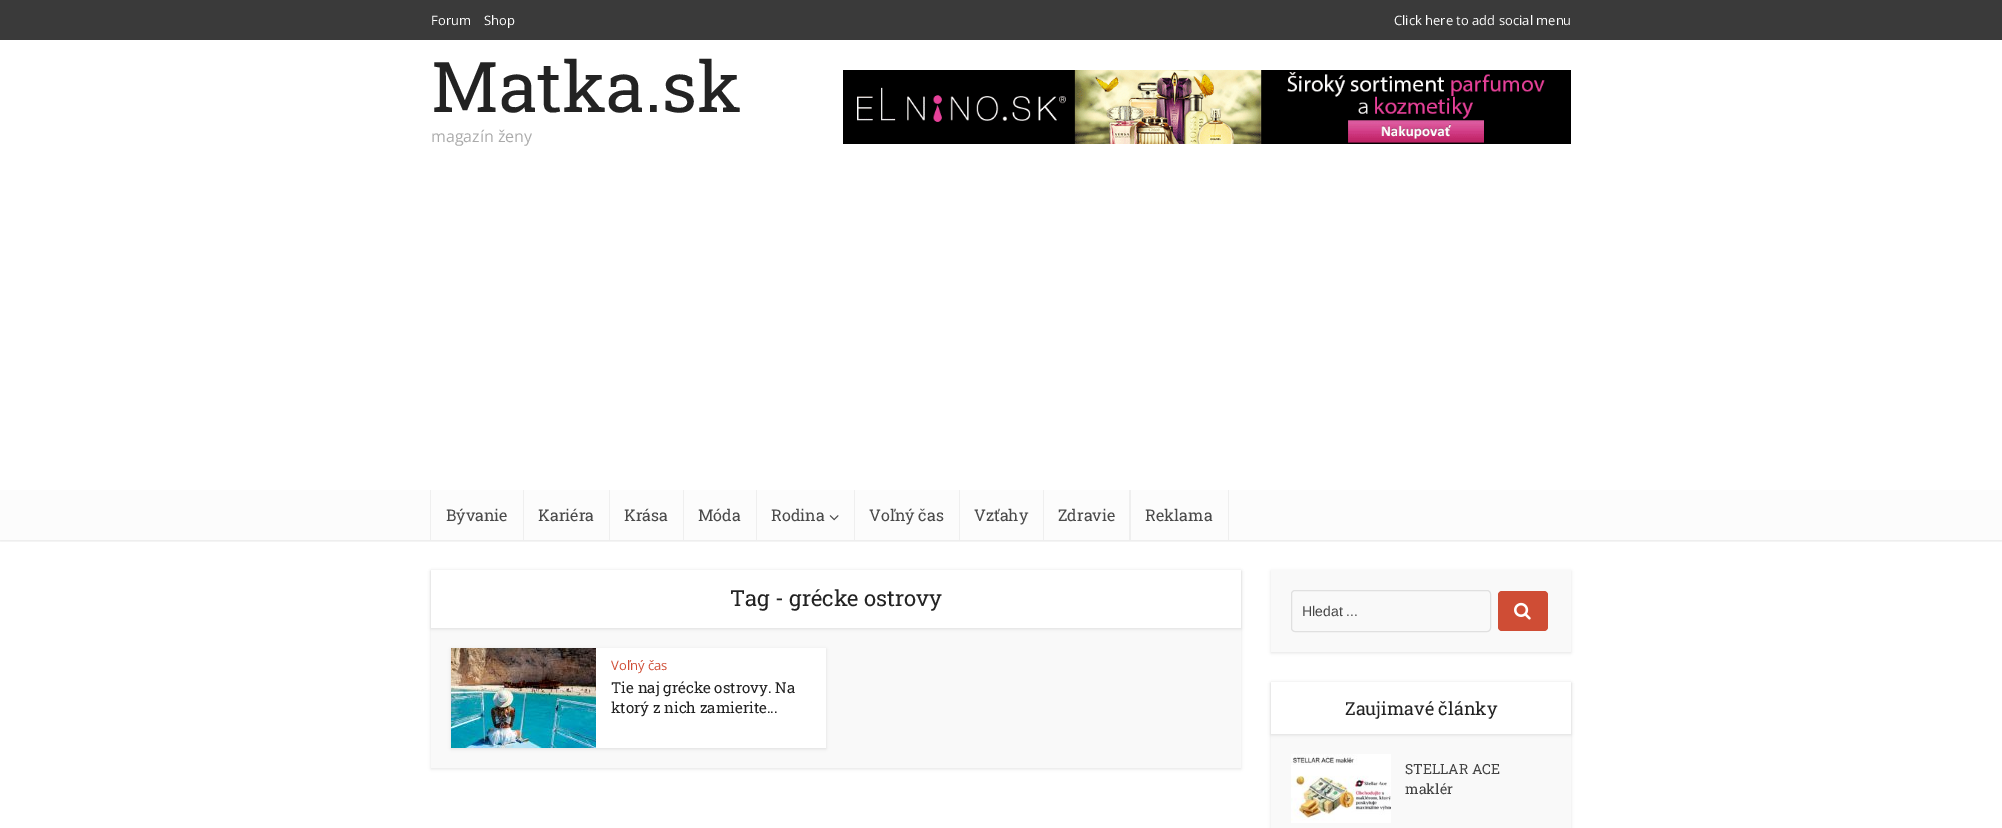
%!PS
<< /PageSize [2002 828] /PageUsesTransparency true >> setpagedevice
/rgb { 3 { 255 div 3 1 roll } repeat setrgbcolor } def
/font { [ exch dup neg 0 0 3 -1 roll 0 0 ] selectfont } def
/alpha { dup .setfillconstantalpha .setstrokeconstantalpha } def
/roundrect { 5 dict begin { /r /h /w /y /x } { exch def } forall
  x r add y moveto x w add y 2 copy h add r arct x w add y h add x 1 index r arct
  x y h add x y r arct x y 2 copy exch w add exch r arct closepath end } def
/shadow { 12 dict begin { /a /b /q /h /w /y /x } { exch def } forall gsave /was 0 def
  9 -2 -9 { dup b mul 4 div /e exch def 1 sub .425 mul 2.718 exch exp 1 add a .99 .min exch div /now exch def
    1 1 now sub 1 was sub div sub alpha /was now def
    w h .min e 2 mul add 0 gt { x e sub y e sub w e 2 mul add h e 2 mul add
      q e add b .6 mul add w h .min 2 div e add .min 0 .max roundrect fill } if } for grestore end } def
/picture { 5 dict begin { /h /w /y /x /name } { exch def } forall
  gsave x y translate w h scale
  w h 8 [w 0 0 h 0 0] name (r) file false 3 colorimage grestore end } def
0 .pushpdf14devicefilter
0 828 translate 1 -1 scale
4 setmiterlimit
255 255 255 rgb
0 0 2002 828 rectfill
gsave
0 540 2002 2 rectclip
0 0 0 rgb
0 1 2002 540 0 1.5 0.1 shadow
grestore
58 58 58 rgb
0 0 2002 40 rectfill
(img/1.rgb) 843 70 728 74 picture
[
  [0 490 2002 50 252 252 252]
  [523 490 1 50 239 239 239]
  [430 490 1 50 239 239 239]
  [609 490 1 50 239 239 239]
  [683 490 1 50 239 239 239]
  [756 490 1 50 239 239 239]
  [854 490 1 50 239 239 239]
] { aload pop rgb rectfill } forall
(img/2.rgb) 829 515 10 6 picture
[
  [959 490 1 50 239 239 239]
  [1043 490 1 50 239 239 239]
  [1129 490 2 50 239 239 239]
  [1228 490 1 50 239 239 239]
] { aload pop rgb rectfill } forall
0 0 0 rgb
431 571 810 198 0 1.5 0.1 shadow
249 249 249 rgb
431 628 810 140 rectfill
0 0 0 rgb
431 571 810 58 0 1.5 0.1 shadow
255 255 255 rgb
431 570 810 58 rectfill
0 0 0 rgb
451 649 375 100 0 1.5 0.1 shadow
255 255 255 rgb
596 648 230 100 rectfill
(img/3.rgb) 451 648 145 100 picture
0 0 0 rgb
1271 571 300 82 0 1.5 0.1 shadow
249 249 249 rgb
1271 570 300 82 rectfill
224 224 224 rgb
1291.5 590.5 199 41 3.5 roundrect stroke
207 77 53 rgb
1498 591 50 40 4 roundrect fill
(img/4.rgb) 1514 602 17 18 picture
0 0 0 rgb
1271 683 300 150 0 1.5 0.1 shadow
249 249 249 rgb
1271 734 300 94 rectfill
0 0 0 rgb
1271 683 300 52 0 1.5 0.1 shadow
255 255 255 rgb
1271 682 300 52 rectfill
(img/5.rgb) 1291 754 100 69 picture
/OpenSans-Regular 13 font
[
  [(Forum) 431 25]
  [(Shop) 484 25]
  [(Click here to add social menu) 1394 25]
] { aload pop moveto show } forall
/RobotoSlab-Regular 70 font
35 35 35 rgb
431 112 moveto (Matka.sk) show
/OpenSans-Regular 16 font
170 170 170 rgb
431 142 moveto (magazín ženy) show
/RobotoSlab-Regular 16 font
74 74 74 rgb
[
  [(Bývanie) 446 521]
  [(Kariéra) 538 521]
  [(Krása) 624 521]
  [(Móda) 698 521]
  [(Rodina) 771 521]
  [(Voľný čas) 869 521]
  [(Vzťahy) 974 521]
  [(Zdravie) 1058 521]
  [(Reklama) 1145 521]
] { aload pop moveto show } forall
/RobotoSlab-Regular 22 font
35 35 35 rgb
730 606 moveto (Tag - grécke ostrovy) show
/OpenSans-Regular 13 font
207 77 53 rgb
611 670 moveto (Voľný čas) show
/RobotoSlab-Regular 15 font
35 35 35 rgb
611 693 moveto (Tie naj grécke ostrovy. Na) show
611 713 moveto (ktorý z nich zamierite...) show
/LiberationSans-Regular 14 font
68 68 68 rgb
1302 616 moveto (Hledat ...) show
/RobotoSlab-Regular 18 font
35 35 35 rgb
1345 715 moveto (Zaujimavé články) show
/RobotoSlab-Regular 14 font
68 68 68 rgb
1405 774 moveto (STELLAR ACE) show
1405 794 moveto (maklér) show
.poppdf14devicefilter showpage
